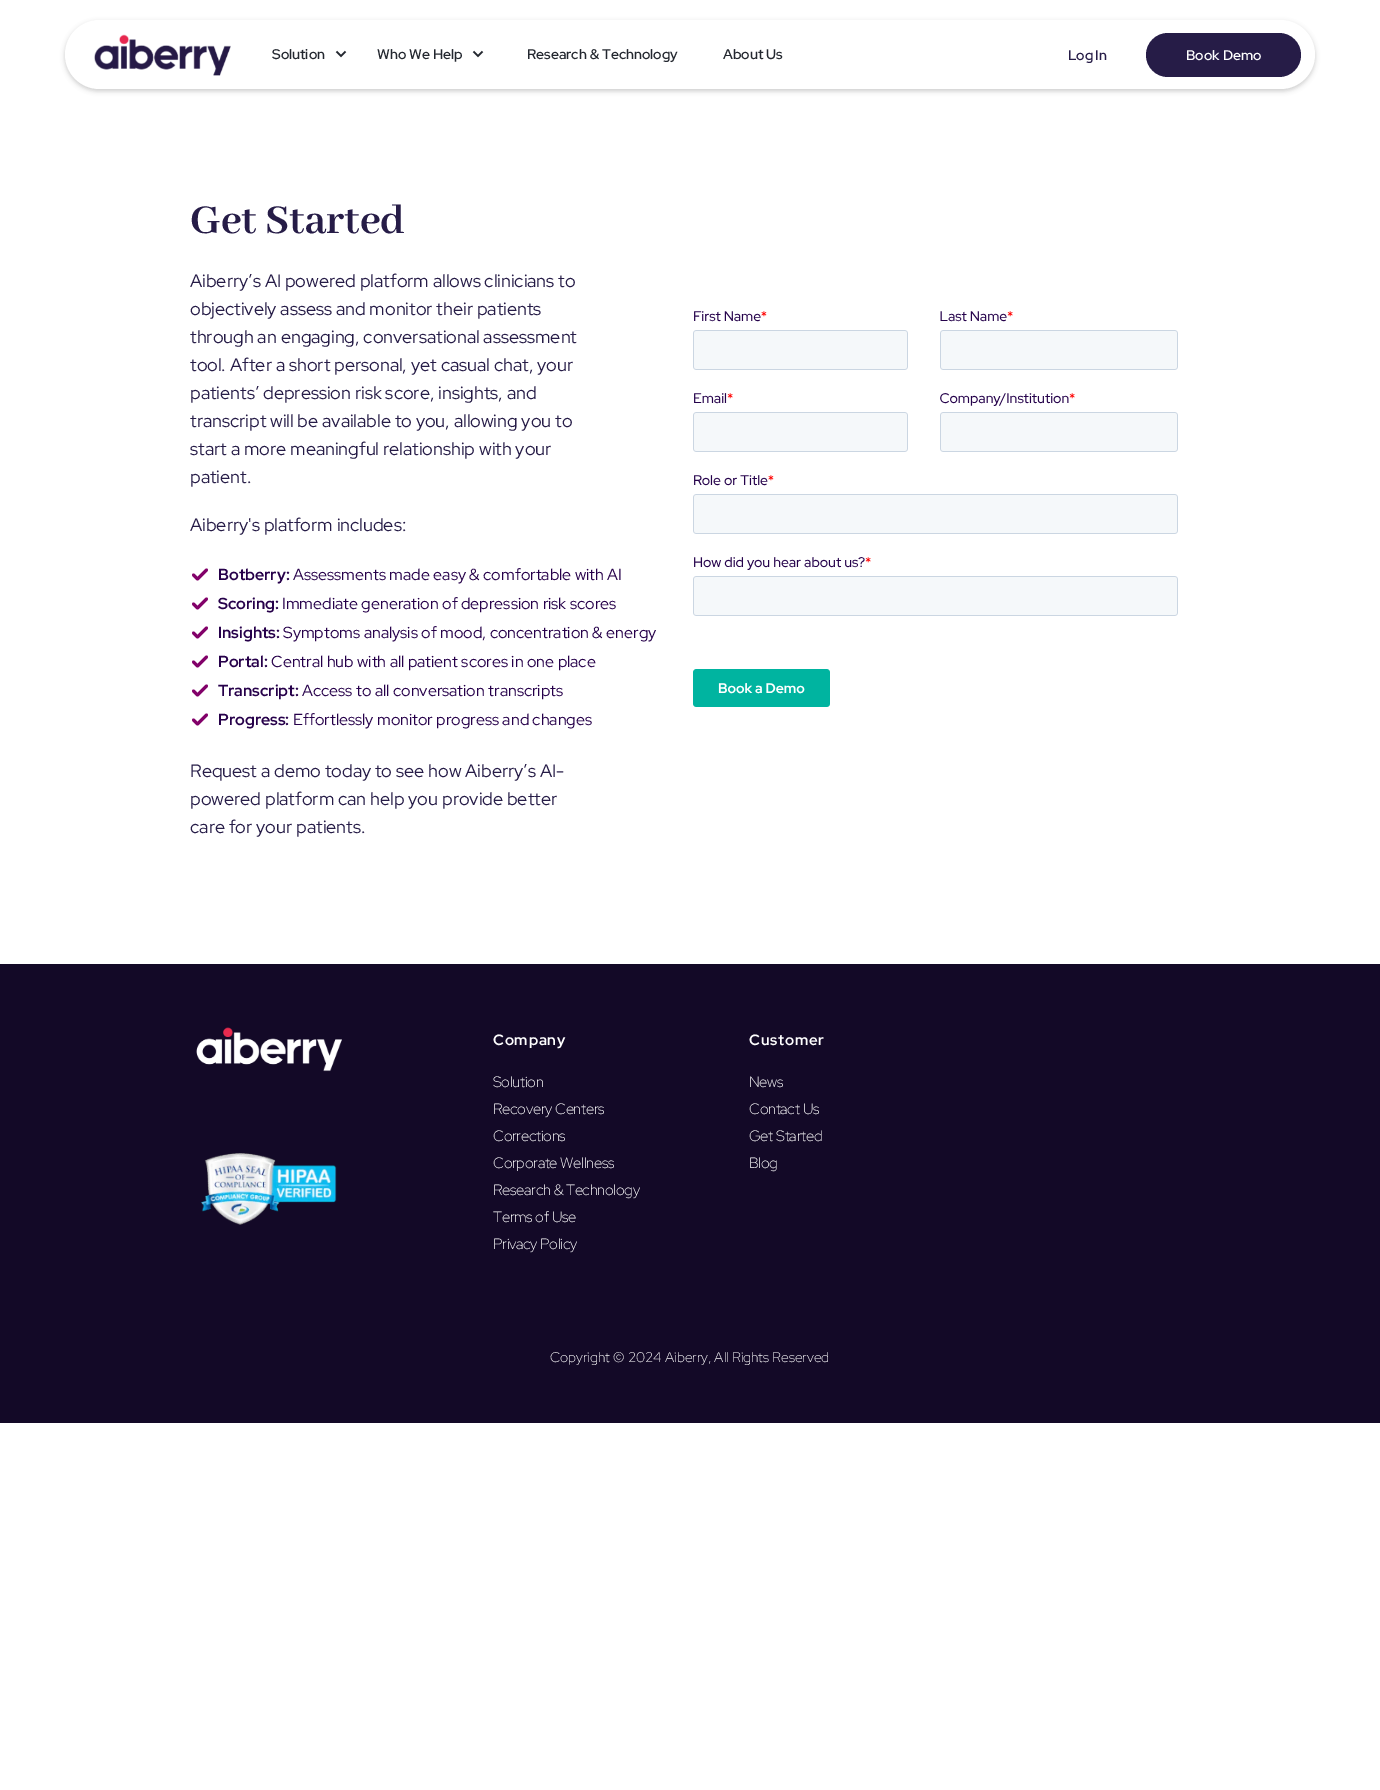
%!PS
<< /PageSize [1380 1790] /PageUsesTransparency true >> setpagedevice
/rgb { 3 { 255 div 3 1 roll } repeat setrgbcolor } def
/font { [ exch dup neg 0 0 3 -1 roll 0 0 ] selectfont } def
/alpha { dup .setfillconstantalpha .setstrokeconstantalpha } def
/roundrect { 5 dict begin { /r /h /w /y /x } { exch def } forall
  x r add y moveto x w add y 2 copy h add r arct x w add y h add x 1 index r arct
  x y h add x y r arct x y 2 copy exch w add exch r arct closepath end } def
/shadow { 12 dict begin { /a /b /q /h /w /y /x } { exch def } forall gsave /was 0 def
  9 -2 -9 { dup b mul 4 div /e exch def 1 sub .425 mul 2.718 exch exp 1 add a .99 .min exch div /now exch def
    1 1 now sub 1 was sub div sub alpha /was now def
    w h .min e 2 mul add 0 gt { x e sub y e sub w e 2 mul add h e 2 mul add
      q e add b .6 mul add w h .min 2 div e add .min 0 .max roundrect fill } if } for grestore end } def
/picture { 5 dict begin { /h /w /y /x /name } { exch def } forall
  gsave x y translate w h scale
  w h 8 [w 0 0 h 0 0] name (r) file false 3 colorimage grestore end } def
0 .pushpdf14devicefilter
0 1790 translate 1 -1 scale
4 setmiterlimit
255 255 255 rgb
0 0 1380 1790 rectfill
0 0 0 rgb
65 22 1250 69 34.5 2.5 0.2 shadow
255 255 255 rgb
65 20 1250 69 34.5 roundrect fill
(img/1.rgb) 94 34 137 42 picture
35 39 47 rgb
1.5 setlinewidth
336.5 51.5 moveto 341 56 lineto 345.5 51.5 lineto stroke
473.5 51.5 moveto 478 56 lineto 482.5 51.5 lineto stroke
38 28 71 rgb
1146 33 155 44 22 roundrect fill
130 1 105 rgb
2.9 setlinewidth
1 setlinecap
1 setlinejoin
206.5 570 moveto 197.5 579 lineto 193.5 575 lineto stroke
206.5 599 moveto 197.5 608 lineto 193.5 604 lineto stroke
206.5 628 moveto 197.5 637 lineto 193.5 633 lineto stroke
206.5 657 moveto 197.5 666 lineto 193.5 662 lineto stroke
206.5 686 moveto 197.5 695 lineto 193.5 691 lineto stroke
206.5 715 moveto 197.5 724 lineto 193.5 720 lineto stroke
(img/2.rgb) 693 311 485 396 picture
19 9 39 rgb
0 964 1380 459 rectfill
(img/3.rgb) 196 1027 146 45 picture
(img/4.rgb) 201 1153 136 72 picture
/RedHatDisplay-SemiBold 14 font
35 39 47 rgb
[
  [(Solution) 272 59]
  [(Who We Help) 377 59]
  [(Research & Technology) 527 59]
  [(About Us) 723 59]
] { aload pop moveto show } forall
38 28 71 rgb
1068 60 moveto -0.25 0 (Log In) ashow
255 255 255 rgb
1186 60 moveto (Book Demo) show
/AbhayaLibre-Bold 45 font
38 28 71 rgb
190 233 moveto (Get Started) show
/RedHatDisplay-Regular 18 font
[
  [(Aiberry’s AI powered platform allows clinicians to) 190 287]
  [(objectively assess and monitor their patients) 190 315]
  [(through an engaging, conversational assessment) 190 343]
  [(tool. After a short personal, yet casual chat, your) 190 371]
  [(patients’ depression risk score, insights, and) 190 399]
  [(transcript will be available to you, allowing you to) 190 427]
  [(start a more meaningful relationship with your) 190 455]
  [(patient.) 190 483]
  [(Aiberry's platform includes:) 190 531]
] { aload pop moveto show } forall
/RedHatDisplay-Bold 16 font
38 0 74 rgb
218 580 moveto (Botberry:) show
/RedHatDisplay-Regular 16 font
293 580 moveto (Assessments made easy & comfortable with AI) show
/RedHatDisplay-Bold 16 font
218 609 moveto (Scoring:) show
/RedHatDisplay-Regular 16 font
282 609 moveto (Immediate generation of depression risk scores) show
/RedHatDisplay-Bold 16 font
218 638 moveto (Insights:) show
/RedHatDisplay-Regular 16 font
283 638 moveto (Symptoms analysis of mood, concentration & energy) show
/RedHatDisplay-Bold 16 font
218 667 moveto (Portal:) show
/RedHatDisplay-Regular 16 font
271 667 moveto (Central hub with all patient scores in one place) show
/RedHatDisplay-Bold 16 font
218 696 moveto (Transcript:) show
/RedHatDisplay-Regular 16 font
302 696 moveto (Access to all conversation transcripts) show
/RedHatDisplay-Bold 16 font
218 725 moveto (Progress:) show
/RedHatDisplay-Regular 16 font
293 725 moveto (Effortlessly monitor progress and changes) show
/RedHatDisplay-Regular 18 font
38 28 71 rgb
[
  [(Request a demo today to see how Aiberry’s AI-) 190 777]
  [(powered platform can help you provide better) 190 805]
  [(care for your patients.) 190 833]
] { aload pop moveto show } forall
/RedHatDisplay-Bold 15 font
255 255 255 rgb
493 1045 moveto 0.75 0 (Company) ashow
/RedHatDisplay-Light 15 font
493 1087 moveto -0.3 0 (Solution) ashow
493 1114 moveto -0.3 0 (Recovery Centers) ashow
493 1141 moveto -0.3 0 (Corrections) ashow
493 1168 moveto -0.3 0 (Corporate Wellness) ashow
493 1195 moveto -0.3 0 (Research & Technology) ashow
493 1222 moveto -0.3 0 (Terms of Use) ashow
493 1249 moveto -0.3 0 (Privacy Policy) ashow
/RedHatDisplay-Bold 15 font
749 1045 moveto 0.75 0 (Customer) ashow
/RedHatDisplay-Light 15 font
749 1087 moveto -0.3 0 (News) ashow
749 1114 moveto -0.3 0 (Contact Us) ashow
749 1141 moveto -0.3 0 (Get Started) ashow
749 1168 moveto -0.3 0 (Blog) ashow
/RedHatDisplay-Light 14 font
550 1362 moveto (Copyright © 2024 Aiberry, All Rights Reserved) show
.poppdf14devicefilter showpage
